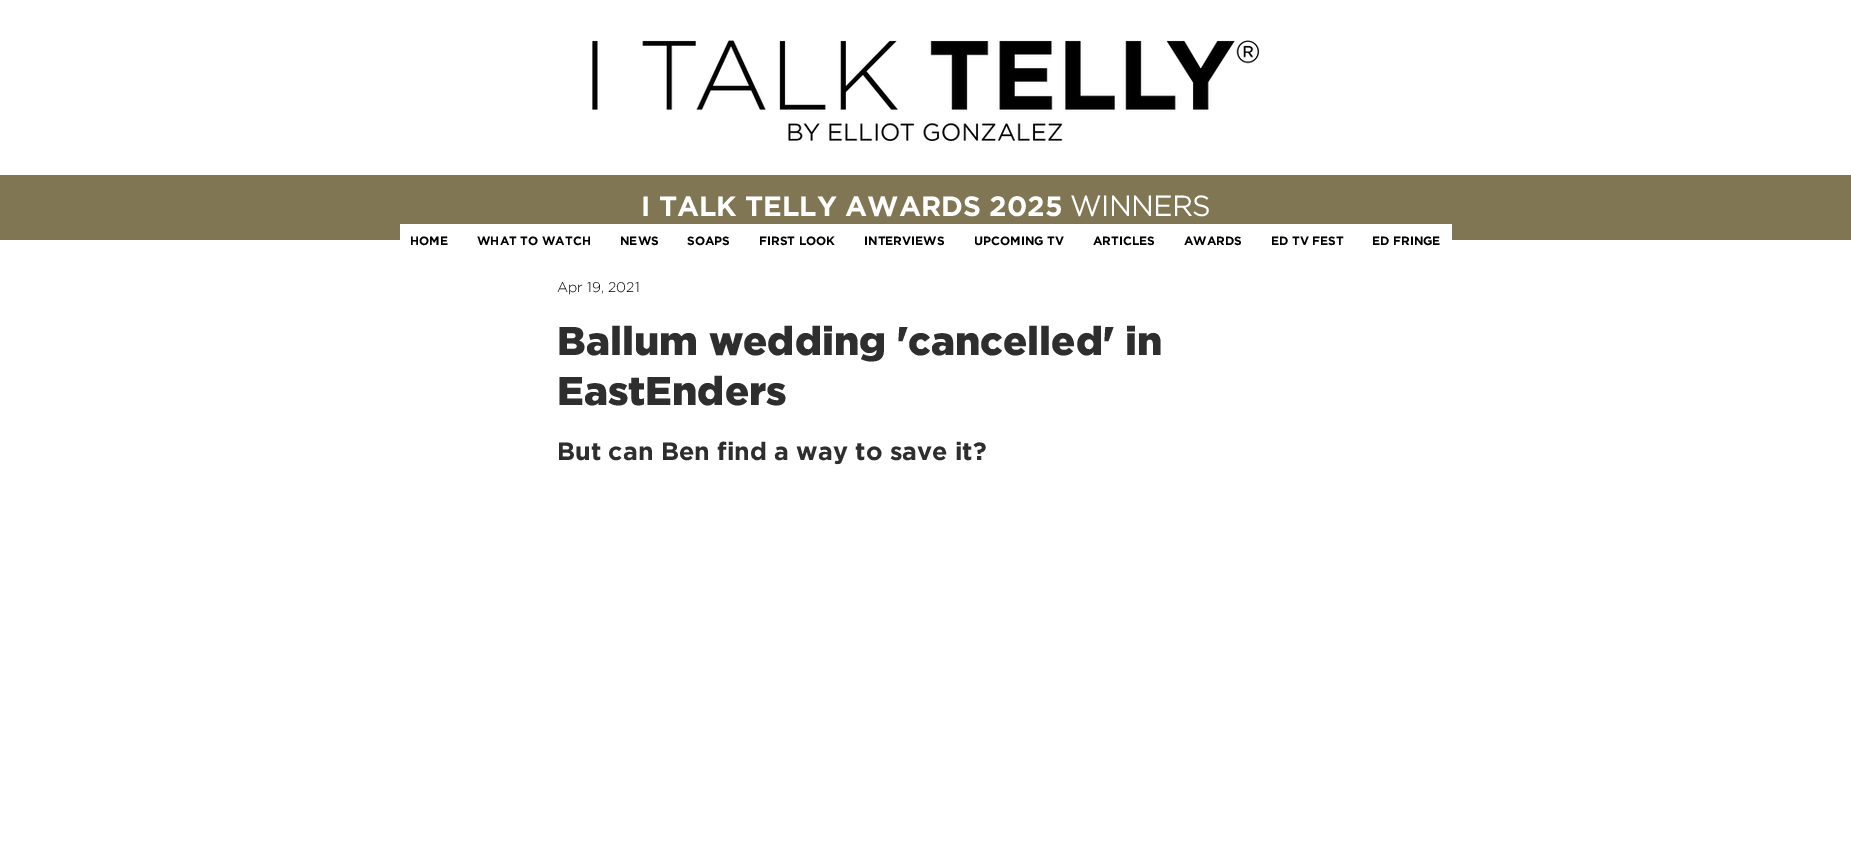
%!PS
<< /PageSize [1851 862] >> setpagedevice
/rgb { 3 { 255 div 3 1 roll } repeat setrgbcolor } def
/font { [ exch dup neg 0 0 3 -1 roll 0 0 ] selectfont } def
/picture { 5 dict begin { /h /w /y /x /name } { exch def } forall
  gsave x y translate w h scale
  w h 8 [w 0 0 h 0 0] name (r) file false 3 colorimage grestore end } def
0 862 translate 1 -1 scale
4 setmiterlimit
255 255 255 rgb
0 0 1851 862 rectfill
(img/1.rgb) 592 40 668 103 picture
129 118 84 rgb
0 175 1851 65 rectfill
255 255 255 rgb
400 224 1052 16 rectfill
/Gotham-Bold 28 font
641 216 moveto (I TALK TELLY AWARDS 2025) show
/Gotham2-Bold 28 font
1070 216 moveto (WINNERS) show
/Gotham-Bold 12 font
0 0 0 rgb
[
  [(HOME) 410 245]
  [(WHAT TO WATCH) 477 245]
  [(NEWS) 620 245]
  [(SOAPS) 687 245]
  [(FIRST LOOK) 759 245]
  [(INTERVIEWS) 864 245]
  [(UPCOMING TV) 974 245]
  [(ARTICLES) 1093 245]
  [(AWARDS) 1184 245]
  [(ED TV FEST) 1271 245]
  [(ED FRINGE) 1372 245]
] { aload pop moveto show } forall
/Gotham-Light 14 font
557 292 moveto (Apr 19, 2021) show
/Gotham-Black 40 font
47 46 46 rgb
557 355 moveto (Ballum wedding 'cancelled' in) show
557 405 moveto (EastEnders) show
/Gotham-Bold 25 font
557 460 moveto (But can Ben find a way to save it?) show
showpage
